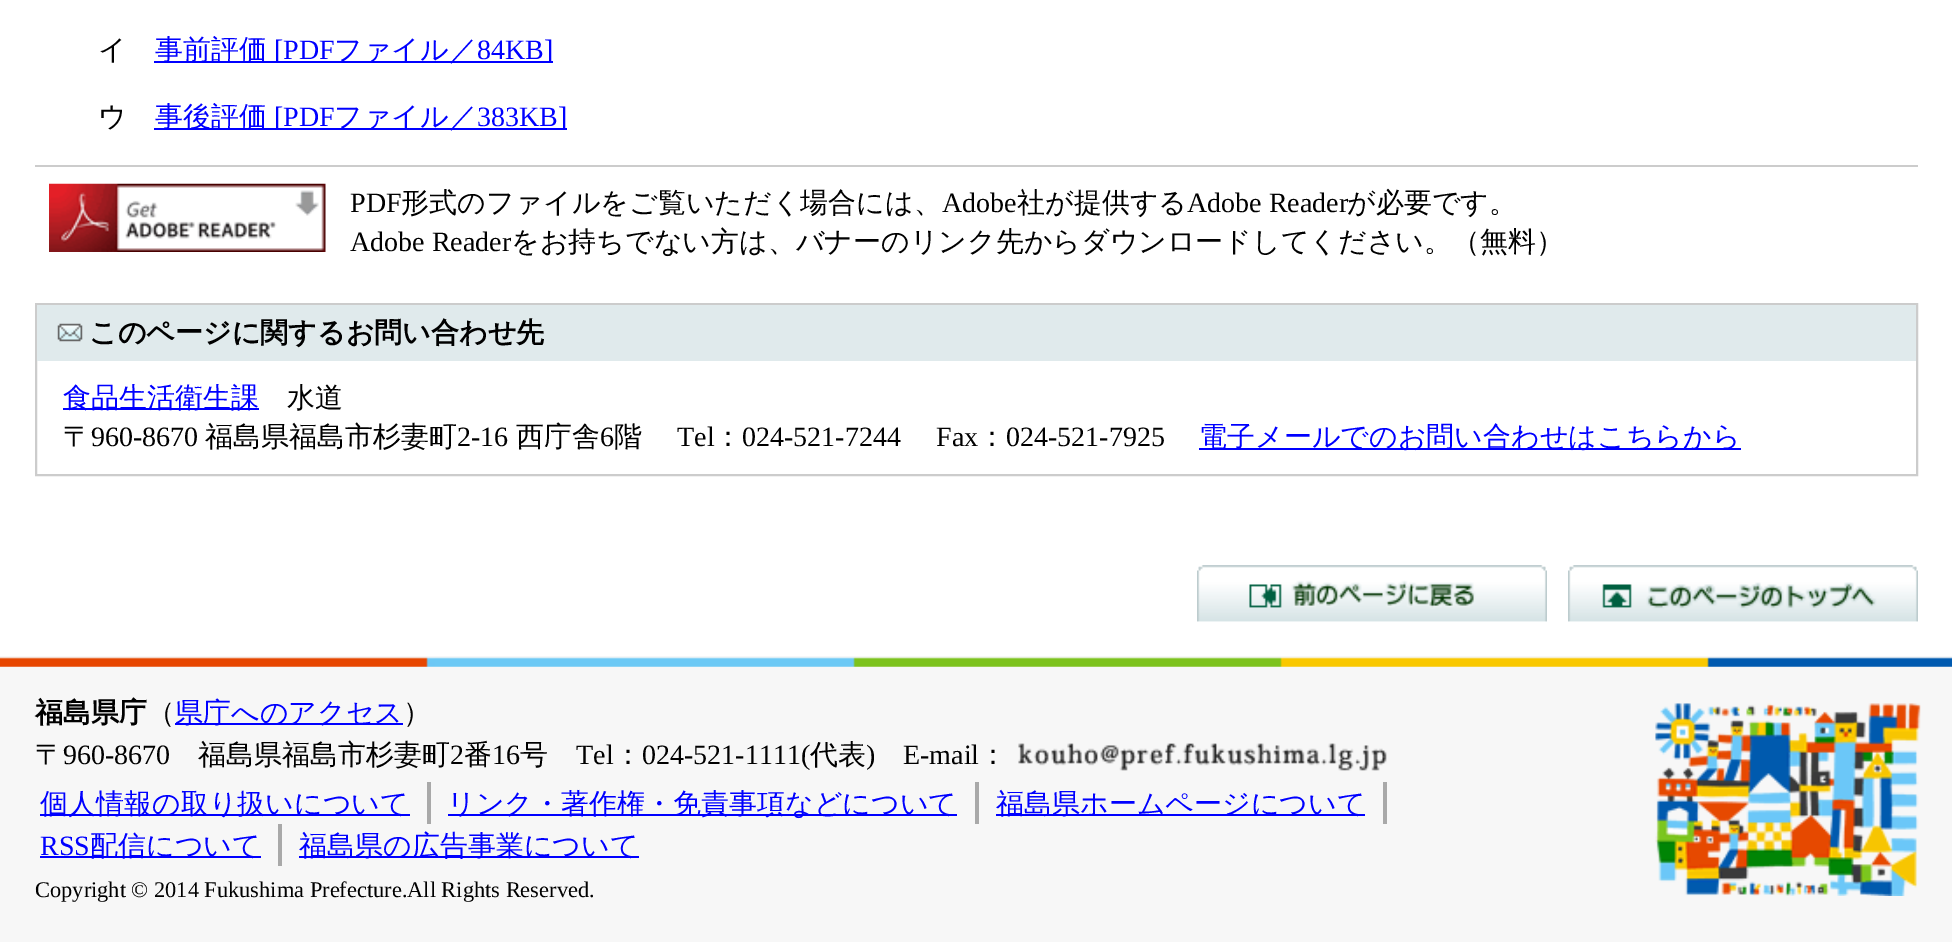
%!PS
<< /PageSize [1952 942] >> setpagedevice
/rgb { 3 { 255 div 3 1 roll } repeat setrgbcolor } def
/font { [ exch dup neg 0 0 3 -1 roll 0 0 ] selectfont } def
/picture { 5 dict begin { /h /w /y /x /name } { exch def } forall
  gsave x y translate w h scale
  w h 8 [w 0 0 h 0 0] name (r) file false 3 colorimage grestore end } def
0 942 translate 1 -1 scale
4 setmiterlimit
255 255 255 rgb
0 0 1952 942 rectfill
[
  [154 61 399 2 0 0 255]
  [154 128 413 2 0 0 255]
  [35 165 1883 2 204 204 204]
] { aload pop rgb rectfill } forall
(img/1.rgb) 49 183 277 69 picture
2 setlinewidth
36 304 1881 171 rectstroke
224 234 236 rgb
37 305 1879 56 rectfill
(img/2.rgb) 57 323 26 19 picture
0 0 255 rgb
63 408 196 2 rectfill
1199 448 542 2 rectfill
(img/3.rgb) 1197 565 350 57 picture
(img/4.rgb) 1197 565 350 57 picture
(img/5.rgb) 1568 565 350 57 picture
(img/6.rgb) 1568 565 350 57 picture
247 247 247 rgb
0 656 1952 286 rectfill
(img/7.rgb) 0 657 1952 10 picture
(img/8.rgb) 1655 703 266 193 picture
0 0 255 rgb
175 723 228 2 rectfill
(img/9.rgb) 1018 743 369 28 picture
[
  [427 782 4 42 169 169 169]
  [40 814 370 2 0 0 255]
  [975 782 4 42 169 169 169]
  [448 814 509 2 0 0 255]
  [1383 782 4 42 169 169 169]
  [996 814 369 2 0 0 255]
  [278 824 4 42 169 169 169]
  [40 856 221 2 0 0 255]
  [299 856 340 2 0 0 255]
] { aload pop rgb rectfill } forall
/WenQuanYiZenHei-Medium 28 font
0 0 0 rgb
98 59 moveto (イ) show
0 0 255 rgb
155 59 moveto (事前評価) show
/LiberationSerif-Regular 28 font
274 59 moveto ([PDF) show
/WenQuanYiZenHei-Medium 28 font
334 59 moveto (ファイル／) show
/LiberationSerif-Regular 28 font
477 59 moveto (84KB]) show
/WenQuanYiZenHei-Medium 28 font
0 0 0 rgb
98 126 moveto (ウ) show
0 0 255 rgb
155 126 moveto (事後評価) show
/LiberationSerif-Regular 28 font
274 126 moveto ([PDF) show
/WenQuanYiZenHei-Medium 28 font
334 126 moveto (ファイル／) show
/LiberationSerif-Regular 28 font
477 126 moveto (383KB]) show
0 0 0 rgb
350 212 moveto (PDF) show
/WenQuanYiZenHei-Medium 28 font
401 212 moveto (形式のファイルをご覧いただく場合には、) show
/LiberationSerif-Regular 28 font
942 212 moveto (Adobe) show
/WenQuanYiZenHei-Medium 28 font
1017 212 moveto (社が提供する) show
/LiberationSerif-Regular 28 font
1187 212 moveto (Adobe Reader) show
/WenQuanYiZenHei-Medium 28 font
1347 212 moveto (が必要です。) show
/LiberationSerif-Regular 28 font
350 251 moveto (Adobe Reader) show
/WenQuanYiZenHei-Medium 28 font
511 251 moveto (をお持ちでない方は、バナーのリンク先からダウンロードしてください。（無料）) show
/WenQuanYiZenHei-Bold 28 font
89 342 moveto (このページに関するお問い合わせ先) show
/WenQuanYiZenHei-Medium 28 font
0 0 255 rgb
63 407 moveto (食品生活衛生課) show
0 0 0 rgb
287 407 moveto (水道) show
63 446 moveto (〒) show
/LiberationSerif-Regular 28 font
91 446 moveto (960-8670) show
/WenQuanYiZenHei-Medium 28 font
205 446 moveto (福島県福島市杉妻町) show
/LiberationSerif-Regular 28 font
457 446 moveto (2-16) show
/WenQuanYiZenHei-Medium 28 font
516 446 moveto (西庁舎) show
/LiberationSerif-Regular 28 font
600 446 moveto (6) show
/WenQuanYiZenHei-Medium 28 font
614 446 moveto (階) show
/LiberationSerif-Regular 28 font
677 446 moveto (Tel) show
/WenQuanYiZenHei-Medium 28 font
714 446 moveto (：) show
/LiberationSerif-Regular 28 font
742 446 moveto (024-521-7244) show
936 446 moveto (Fax) show
/WenQuanYiZenHei-Medium 28 font
978 446 moveto (：) show
/LiberationSerif-Regular 28 font
1006 446 moveto (024-521-7925) show
/WenQuanYiZenHei-Medium 28 font
0 0 255 rgb
1199 446 moveto (電子メールでのお問い合わせはこちらから) show
/WenQuanYiZenHei-Bold 28 font
0 0 0 rgb
35 722 moveto (福島県庁) show
/WenQuanYiZenHei-Medium 28 font
147 722 moveto (（) show
0 0 255 rgb
175 722 moveto (県庁へのアクセス) show
0 0 0 rgb
403 722 moveto (）) show
35 764 moveto (〒) show
/LiberationSerif-Regular 28 font
63 764 moveto (960-8670) show
/WenQuanYiZenHei-Medium 28 font
198 764 moveto (福島県福島市杉妻町) show
/LiberationSerif-Regular 28 font
450 764 moveto (2) show
/WenQuanYiZenHei-Medium 28 font
464 764 moveto (番) show
/LiberationSerif-Regular 28 font
492 764 moveto (16) show
/WenQuanYiZenHei-Medium 28 font
520 764 moveto (号) show
/LiberationSerif-Regular 28 font
576 764 moveto (Tel) show
/WenQuanYiZenHei-Medium 28 font
614 764 moveto (：) show
/LiberationSerif-Regular 28 font
642 764 moveto (024-521-1111\() show
/WenQuanYiZenHei-Medium 28 font
810 764 moveto (代表) show
/LiberationSerif-Regular 28 font
866 764 moveto (\)) show
903 764 moveto (E-mail) show
/WenQuanYiZenHei-Medium 28 font
979 764 moveto (：) show
0 0 255 rgb
[
  [(個人情報の取り扱いについて) 40 813]
  [(リンク・著作権・免責事項などについて) 447 813]
  [(福島県ホームページについて) 996 813]
] { aload pop moveto show } forall
/LiberationSerif-Regular 28 font
40 855 moveto (RSS) show
/WenQuanYiZenHei-Medium 28 font
90 855 moveto (配信について) show
299 855 moveto (福島県の広告事業について) show
/LiberationSerif-Regular 22.4 font
0 0 0 rgb
35 897 moveto (Copyright © 2014 Fukushima Prefecture.All Rights Reserved.) show
showpage
